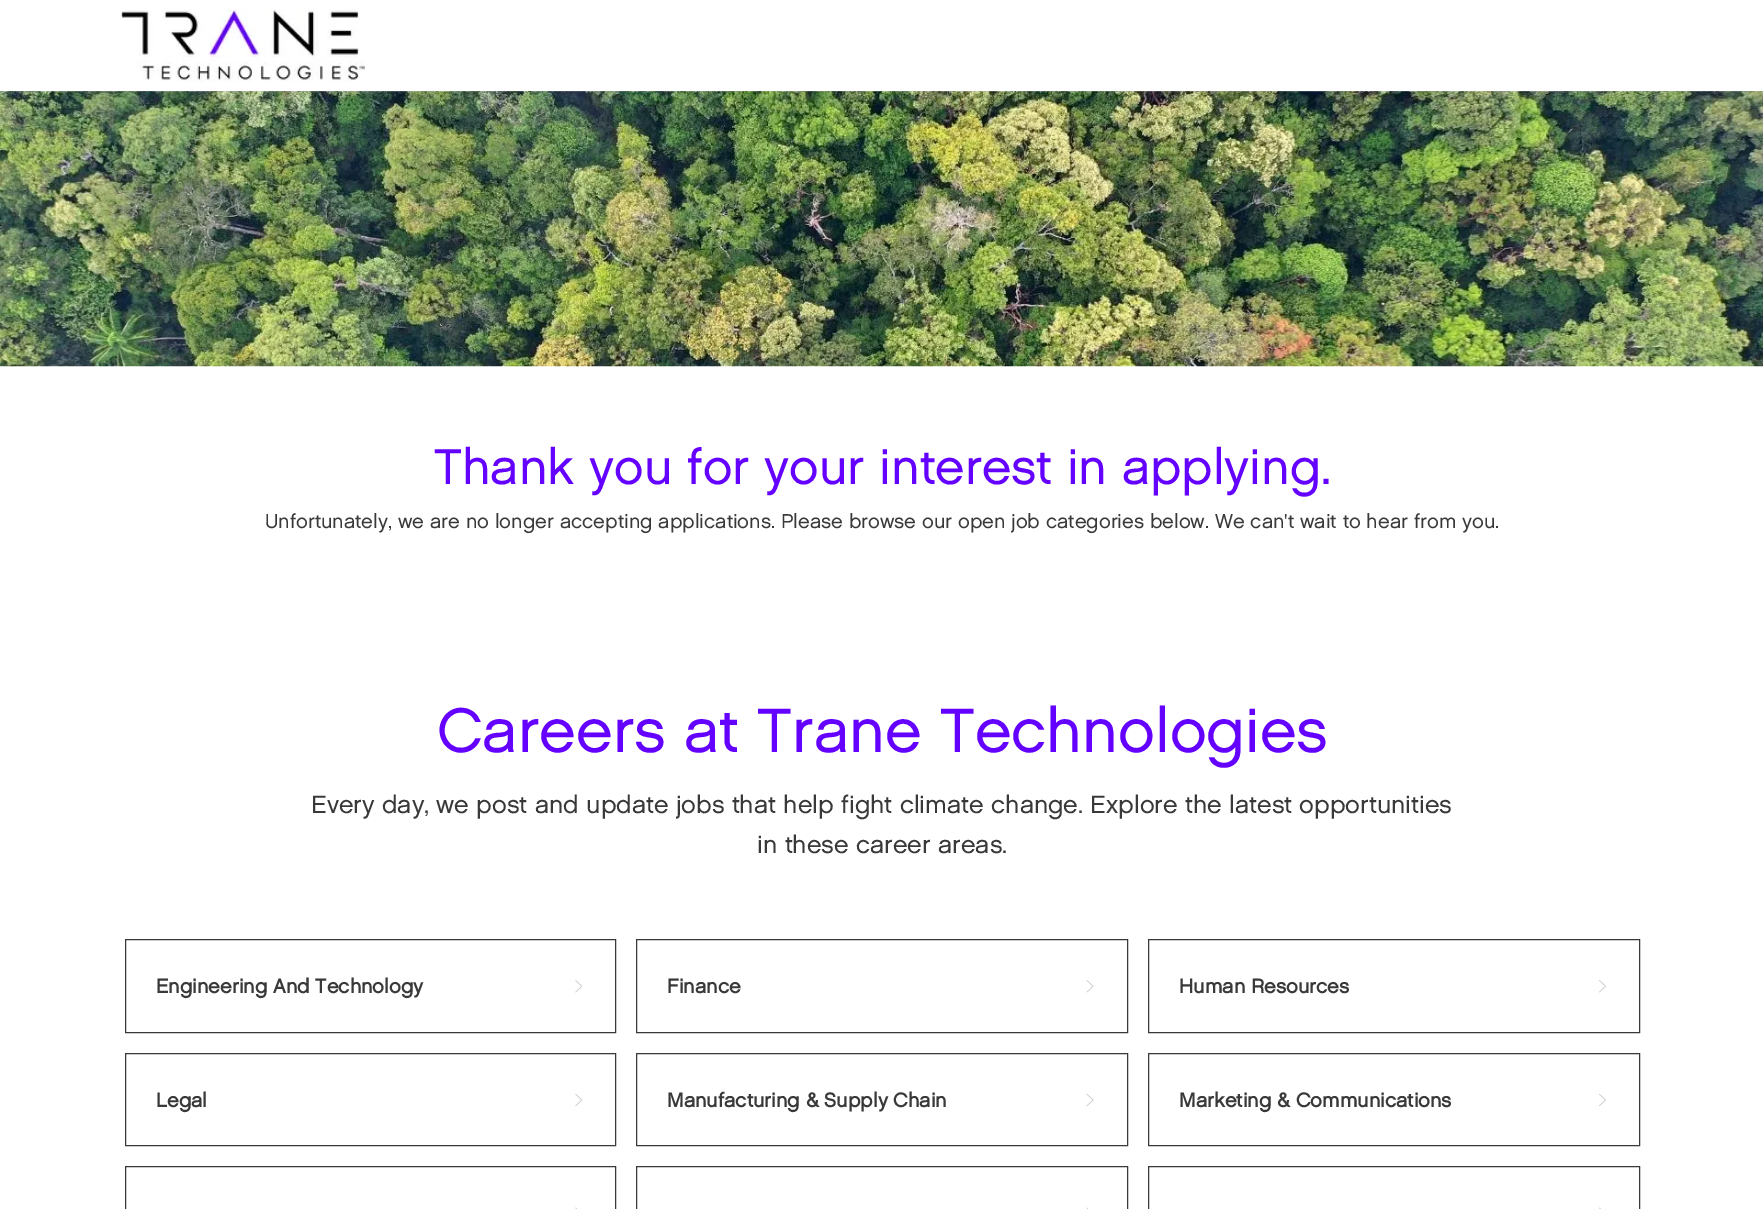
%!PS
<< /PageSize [1763 1209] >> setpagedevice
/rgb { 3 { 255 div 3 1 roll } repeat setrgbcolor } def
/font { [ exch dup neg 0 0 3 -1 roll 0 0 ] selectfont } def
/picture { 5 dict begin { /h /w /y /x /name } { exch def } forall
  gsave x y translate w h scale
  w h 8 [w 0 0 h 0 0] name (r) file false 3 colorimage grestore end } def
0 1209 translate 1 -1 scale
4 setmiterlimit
255 255 255 rgb
0 0 1763 1209 rectfill
(img/1.rgb) 120 9 245 73 picture
(img/2.rgb) 0 91 1763 276 picture
57 57 57 rgb
125.5 939.5 490 93 rectstroke
(img/3.rgb) 575 980 8 13 picture
636.5 939.5 491 93 rectstroke
(img/4.rgb) 1086 980 8 13 picture
1148.5 939.5 491 93 rectstroke
(img/5.rgb) 1599 980 7 13 picture
125.5 1053.5 490 92 rectstroke
(img/6.rgb) 575 1093 8 14 picture
636.5 1053.5 491 92 rectstroke
(img/7.rgb) 1086 1093 8 14 picture
1148.5 1053.5 491 92 rectstroke
(img/8.rgb) 1599 1093 7 14 picture
125.5 1166.5 490 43 rectstroke
(img/9.rgb) 575 1207 2 2 picture
636.5 1166.5 491 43 rectstroke
(img/10.rgb) 1086 1207 3 2 picture
1148.5 1166.5 491 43 rectstroke
(img/11.rgb) 1599 1207 2 2 picture
/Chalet-Medium 50 font
100 0 255 rgb
434 484 moveto (Thank you for your interest in applying.) show
/Chalet-Medium 20 font
57 57 57 rgb
265 528 moveto (Unfortunately, we are no longer accepting applications. Please browse our open job categories below. We can't wait to hear from you.) show
/Chalet-Medium 62.5 font
100 0 255 rgb
437 752 moveto (Careers at Trane Technologies) show
/Chalet-Medium 25 font
57 57 57 rgb
311 813 moveto (Every day, we post and update jobs that help fight climate change. Explore the latest opportunities) show
757 853 moveto (in these career areas.) show
/Chalet-Bold 20 font
[
  [(Engineering And Technology) 156 993]
  [(Finance) 667 993]
  [(Human Resources) 1179 993]
  [(Legal) 156 1107]
  [(Manufacturing & Supply Chain) 667 1107]
  [(Marketing & Communications) 1179 1107]
] { aload pop moveto show } forall
showpage
